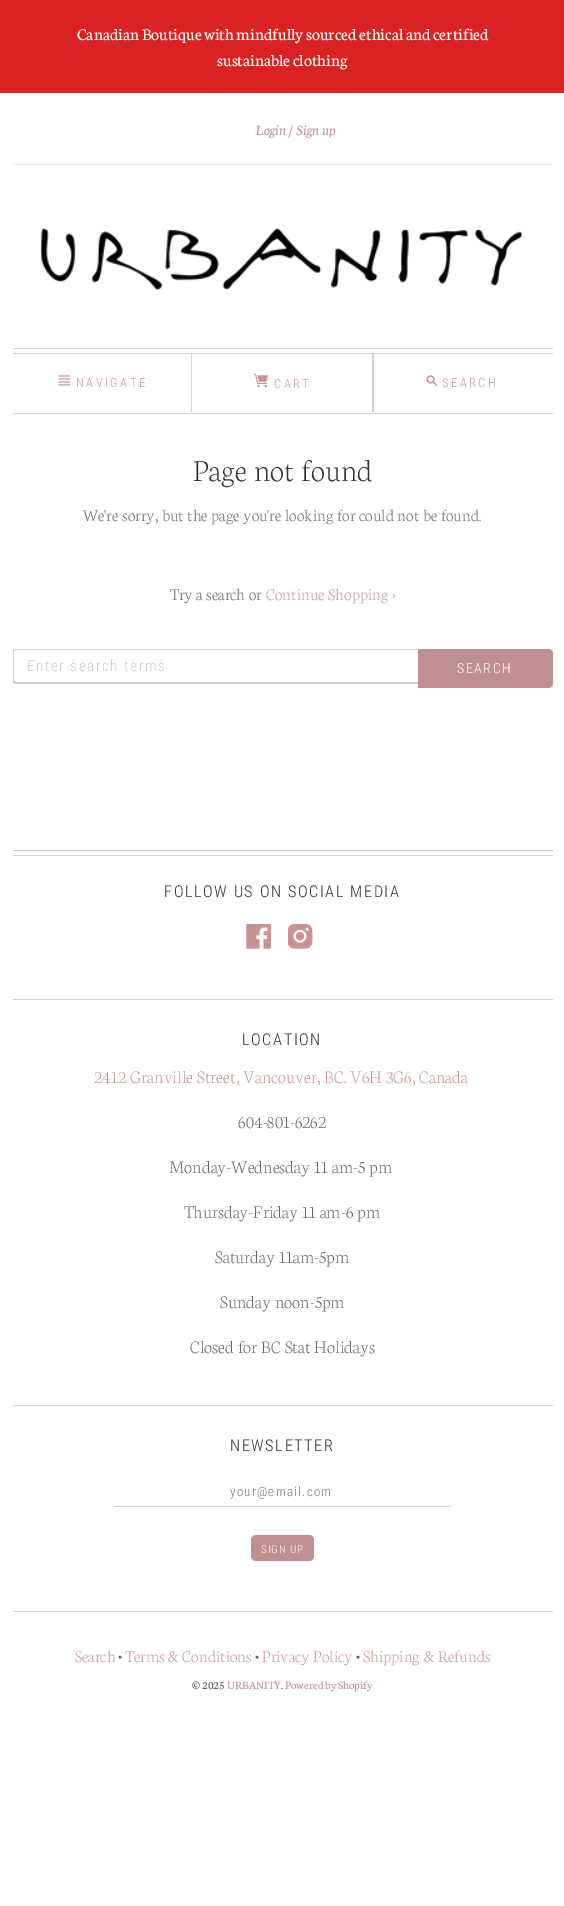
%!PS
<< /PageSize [564 1906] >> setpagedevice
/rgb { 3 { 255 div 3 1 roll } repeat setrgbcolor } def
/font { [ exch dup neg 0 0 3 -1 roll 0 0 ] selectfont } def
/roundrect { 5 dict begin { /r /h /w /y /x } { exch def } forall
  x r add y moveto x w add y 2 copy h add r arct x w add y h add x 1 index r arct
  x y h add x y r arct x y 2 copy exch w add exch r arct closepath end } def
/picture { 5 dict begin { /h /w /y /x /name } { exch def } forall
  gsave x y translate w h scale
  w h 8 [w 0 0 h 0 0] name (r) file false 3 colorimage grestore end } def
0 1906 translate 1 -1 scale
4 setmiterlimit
255 255 255 rgb
0 0 564 1906 rectfill
220 33 33 rgb
0 0 564 93 rectfill
235 235 235 rgb
13 164 540 1 rectfill
(img/1.rgb) 40 228 483 63 picture
210 210 210 rgb
13 353 540 1 rectfill
13 348 540 1 rectfill
192 352 moveto 192 412 lineto 191 412 lineto 191 354 lineto closepath fill
(img/2.rgb) 58 375 13 11 picture
(img/3.rgb) 254 374 14 14 picture
372 412 moveto 372 352 lineto 374 354 lineto 374 412 lineto closepath fill
(img/4.rgb) 426 375 12 11 picture
13 413 540 1 rectfill
gsave
13 624 540 64 rectclip
16 649 moveto 418 649 lineto 418 684 lineto 16 684 lineto 14 684 12 682 12 680 curveto 12 652 lineto 12 650 14 649 16 649 curveto closepath 16 650 moveto 418 650 lineto 418 682 lineto 16 682 lineto 15 682 14 681 14 680 curveto 14 652 lineto 14 651 15 650 16 650 curveto closepath eofill
grestore
192 143 143 rgb
418 649 moveto 548 649 lineto 551 649 553 651 553 654 curveto 553 683 lineto 553 686 551 688 548 688 curveto 418 688 lineto closepath fill
210 210 210 rgb
13 850 540 1 rectfill
13 855 540 1 rectfill
(img/5.rgb) 246 924 25 25 picture
(img/6.rgb) 288 924 25 25 picture
[
  [13 999 540 1 210 210 210]
  [13 1405 540 1 210 210 210]
  [114 1506 337 1 210 210 210]
] { aload pop rgb rectfill } forall
192 143 143 rgb
251 1535 63 26 5 roundrect fill
210 210 210 rgb
13 1611 540 1 rectfill
/Neuton-Regular 17.5 font
255 255 255 rgb
77 40 moveto (Canadian Boutique with mindfully sourced ethical and certified) show
217 66 moveto (sustainable clothing) show
/Neuton-Italic 15.25 font
202 146 146 rgb
255 135 moveto (Login / Sign up) show
/RobotoCondensed-Light 12.5 font
76 387 moveto 2.5 0 (NAVIGATE) ashow
274 388 moveto 2.5 0 (CART) ashow
442 387 moveto 2.5 0 (SEARCH) ashow
/Neuton-Light 32.75 font
51 51 51 rgb
193 481 moveto (Page not found) show
/Neuton-Light 17.5 font
102 102 102 rgb
83 521 moveto (We're sorry, but the page you're looking for could not be found.) show
170 600 moveto (Try a search or) show
202 146 146 rgb
266 600 moveto (Continue Shopping ›) show
/RobotoCondensed-Light 15.25 font
204 204 204 rgb
27 671 moveto 1.5 0 (Enter search terms) ashow
/RobotoCondensed-Light 14 font
255 255 255 rgb
457 673 moveto 1.5 0 (SEARCH) ashow
/RobotoCondensed-Light 16.25 font
51 51 51 rgb
164 897 moveto 1.6 0 (FOLLOW US ON SOCIAL MEDIA) ashow
242 1045 moveto 1.6 0 (LOCATION) ashow
/Neuton-Light 18.75 font
202 146 146 rgb
94 1083 moveto (2412 Granville Street, Vancouver, BC. V6H 3G6, Canada) show
102 102 102 rgb
[
  [(604-801-6262) 238 1128]
  [(Monday-Wednesday 11 am-5 pm) 169 1173]
  [(Thursday-Friday 11 am-6 pm) 184 1218]
  [(Saturday 11am-5pm) 215 1263]
  [(Sunday noon-5pm) 220 1308]
  [(Closed for BC Stat Holidays) 190 1353]
] { aload pop moveto show } forall
/RobotoCondensed-Light 16.25 font
51 51 51 rgb
230 1451 moveto 1.6 0 (NEWSLETTER) ashow
/RobotoCondensed-Light 13 font
117 117 117 rgb
230 1496 moveto 1.25 0 (your@email.com) ashow
/RobotoCondensed-Light 11 font
255 255 255 rgb
261 1553 moveto 1 0 (SIGN UP) ashow
/Neuton-Light 17.5 font
202 146 146 rgb
75 1662 moveto (Search) show
/Neuton-Regular 17.5 font
102 102 102 rgb
118 1662 moveto (•) show
/Neuton-Light 17.5 font
202 146 146 rgb
125 1662 moveto (Terms & Conditions) show
/Neuton-Regular 17.5 font
102 102 102 rgb
255 1662 moveto (•) show
/Neuton-Light 17.5 font
202 146 146 rgb
262 1662 moveto (Privacy Policy) show
/Neuton-Regular 17.5 font
102 102 102 rgb
356 1662 moveto (•) show
/Neuton-Light 17.5 font
202 146 146 rgb
363 1662 moveto (Shipping & Refunds) show
/Neuton-Regular 12 font
102 102 102 rgb
192 1689 moveto (© 2025) show
202 146 146 rgb
227 1689 moveto (URBANITY) show
102 102 102 rgb
281 1689 moveto (.) show
202 146 146 rgb
285 1689 moveto (Powered by Shopify) show
showpage
